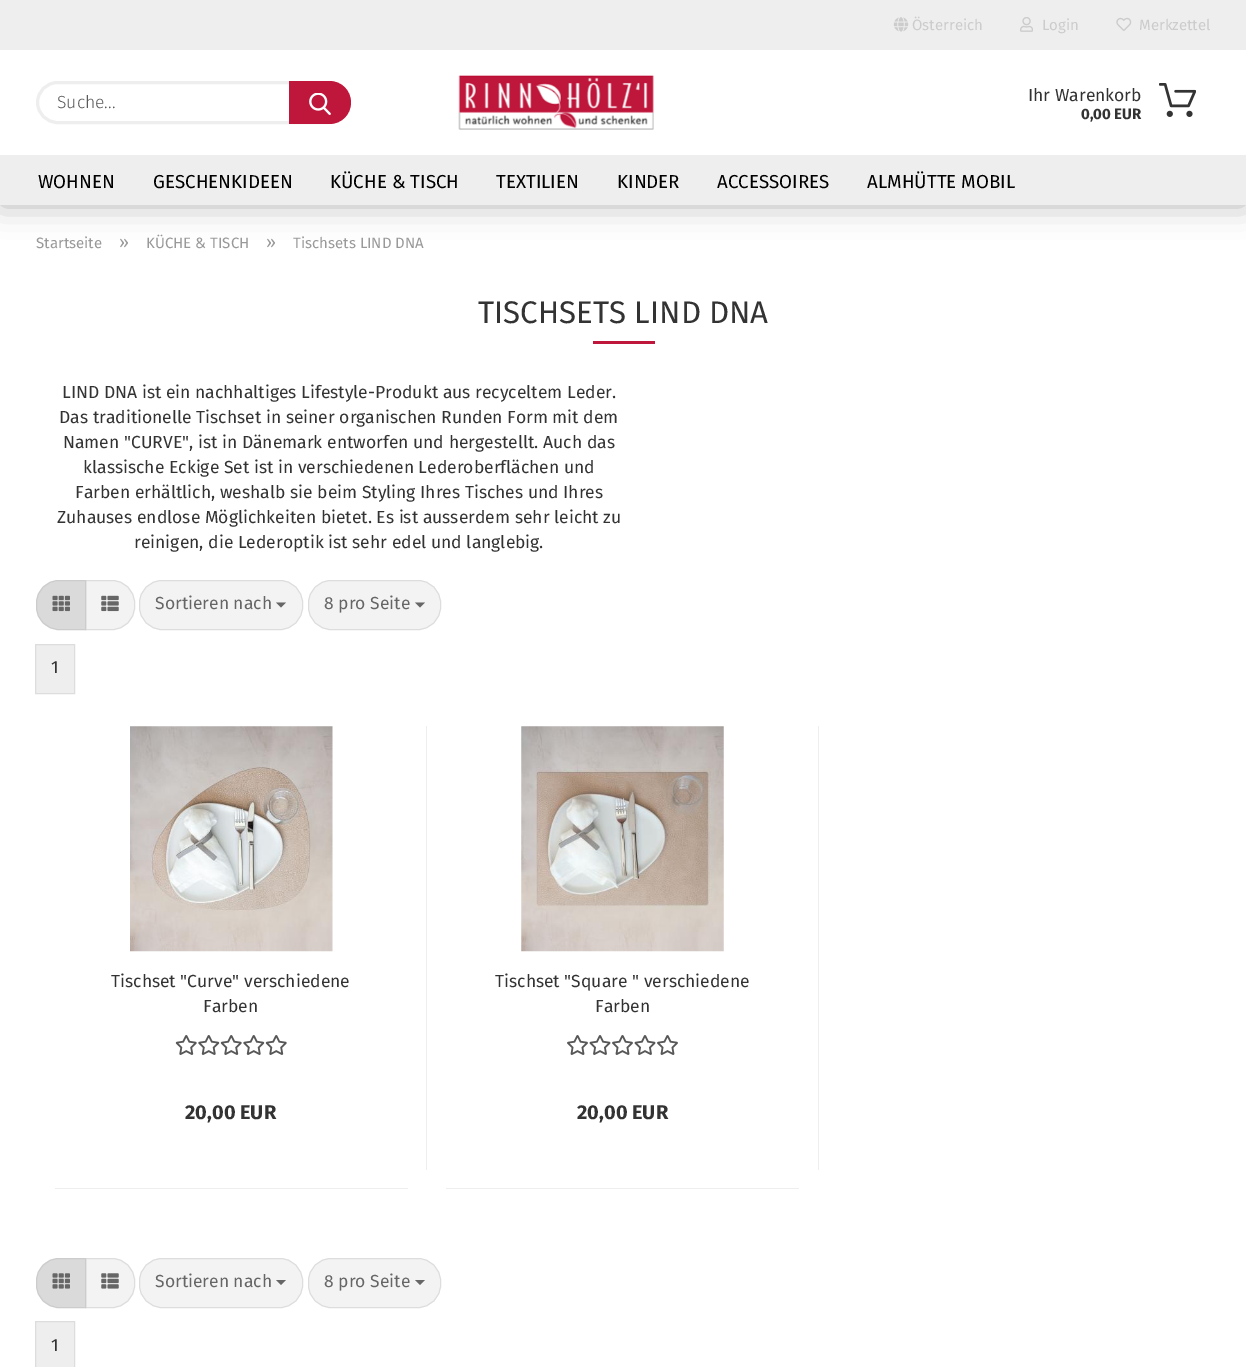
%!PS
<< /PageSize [1246 1367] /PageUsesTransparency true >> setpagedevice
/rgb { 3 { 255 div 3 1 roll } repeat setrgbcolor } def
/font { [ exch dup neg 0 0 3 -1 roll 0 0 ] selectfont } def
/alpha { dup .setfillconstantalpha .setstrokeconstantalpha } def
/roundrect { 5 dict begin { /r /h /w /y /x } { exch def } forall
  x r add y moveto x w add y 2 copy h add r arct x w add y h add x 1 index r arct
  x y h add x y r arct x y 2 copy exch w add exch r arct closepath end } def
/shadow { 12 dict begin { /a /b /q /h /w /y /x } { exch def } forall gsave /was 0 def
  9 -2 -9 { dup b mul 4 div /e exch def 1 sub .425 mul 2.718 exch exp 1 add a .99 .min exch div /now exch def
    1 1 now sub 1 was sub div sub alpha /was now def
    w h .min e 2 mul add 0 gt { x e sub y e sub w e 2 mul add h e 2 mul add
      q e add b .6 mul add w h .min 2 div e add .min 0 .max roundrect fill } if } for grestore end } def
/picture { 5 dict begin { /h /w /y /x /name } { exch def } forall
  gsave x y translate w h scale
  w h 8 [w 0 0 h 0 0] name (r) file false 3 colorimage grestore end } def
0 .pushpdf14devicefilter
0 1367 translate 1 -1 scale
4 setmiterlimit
255 255 255 rgb
0 0 1246 1367 rectfill
0 0 0 rgb
0 0 1246 205 0 15.5 0.3 shadow
255 255 255 rgb
0 50 1246 105 rectfill
238 238 238 rgb
0 0 1246 50 rectfill
(img/1.rgb) 893 17 16 15 picture
(img/2.rgb) 1020 17 13 15 picture
(img/3.rgb) 1116 17 16 14 picture
3 setlinewidth
37.5 82.5 310 40 20 roundrect stroke
191 23 60 rgb
289 81 moveto 329.5 81 lineto 341.5 81 351 90.5 351 102.5 curveto 351 114.5 341.5 124 329.5 124 curveto 289 124 lineto closepath fill
(img/4.rgb) 309 93 22 22 picture
(img/5.rgb) 458 75 196 55 picture
(img/6.rgb) 1159 83 37 34 picture
238 238 238 rgb
0 155 1246 50 rectfill
191 23 60 rgb
593 341 62 3 rectfill
243 243 243 rgb
85.5 580.5 moveto 112 580.5 lineto 124.5 580.5 134.5 590.5 134.5 603 curveto 134.5 607 lineto 134.5 619.5 124.5 629.5 112 629.5 curveto 85.5 629.5 lineto closepath gsave fill grestore
221 221 221 rgb
1 setlinewidth
stroke
218 218 218 rgb
59 580.5 moveto 85.5 580.5 lineto 85.5 629.5 lineto 59 629.5 lineto 46.5 629.5 36.5 619.5 36.5 607 curveto 36.5 603 lineto 36.5 590.5 46.5 580.5 59 580.5 curveto closepath gsave fill grestore
204 204 204 rgb
stroke
(img/7.rgb) 52 595 18 17 picture
(img/8.rgb) 101 595 18 17 picture
243 243 243 rgb
139.5 580.5 163 49 22.5 roundrect gsave fill grestore
221 221 221 rgb
stroke
102 102 102 rgb
276 602.5 moveto 286 602.5 lineto 281 607.5 lineto closepath fill
243 243 243 rgb
308.5 580.5 132 49 22.5 roundrect gsave fill grestore
221 221 221 rgb
stroke
102 102 102 rgb
415 602.5 moveto 425 602.5 lineto 420 607.5 lineto closepath fill
238 238 238 rgb
35.5 644.5 moveto 74.5 644.5 lineto 74.5 693.5 lineto 35.5 693.5 lineto closepath gsave fill grestore
221 221 221 rgb
stroke
238 238 238 rgb
426 726 1 444 rectfill
55 1188 353 1 rectfill
(img/9.rgb) 130 726 203 226 picture
(img/10.rgb) 175 1035 22 20 picture
(img/11.rgb) 198 1035 22 20 picture
(img/10.rgb) 220 1035 22 20 picture
(img/11.rgb) 243 1035 22 20 picture
(img/10.rgb) 265 1035 22 20 picture
818 726 1 444 rectfill
446 1188 353 1 rectfill
(img/12.rgb) 521 726 203 226 picture
(img/13.rgb) 567 1035 21 20 picture
(img/14.rgb) 589 1035 22 20 picture
(img/13.rgb) 612 1035 21 20 picture
(img/14.rgb) 634 1035 22 20 picture
(img/13.rgb) 657 1035 21 20 picture
243 243 243 rgb
85.5 1258.5 moveto 112 1258.5 lineto 124.5 1258.5 134.5 1268.5 134.5 1281 curveto 134.5 1285 lineto 134.5 1297.5 124.5 1307.5 112 1307.5 curveto 85.5 1307.5 lineto closepath gsave fill grestore
221 221 221 rgb
stroke
218 218 218 rgb
59 1258.5 moveto 85.5 1258.5 lineto 85.5 1307.5 lineto 59 1307.5 lineto 46.5 1307.5 36.5 1297.5 36.5 1285 curveto 36.5 1281 lineto 36.5 1268.5 46.5 1258.5 59 1258.5 curveto closepath gsave fill grestore
204 204 204 rgb
stroke
(img/15.rgb) 52 1273 18 16 picture
(img/16.rgb) 101 1273 18 16 picture
243 243 243 rgb
139.5 1258.5 163 49 22.5 roundrect gsave fill grestore
221 221 221 rgb
stroke
102 102 102 rgb
276 1280 moveto 286 1280 lineto 281 1285 lineto closepath fill
243 243 243 rgb
308.5 1258.5 132 49 22.5 roundrect gsave fill grestore
221 221 221 rgb
stroke
102 102 102 rgb
415 1280 moveto 425 1280 lineto 420 1285 lineto closepath fill
238 238 238 rgb
35.5 1321.5 moveto 74.5 1321.5 lineto 74.5 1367.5 lineto 35.5 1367.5 lineto closepath gsave fill grestore
221 221 221 rgb
stroke
/FiraSans-Regular 15 font
204 204 204 rgb
[
  [(Österreich) 912 30]
  [(Login) 1042 30]
  [(Merkzettel) 1139 30]
] { aload pop moveto show } forall
/FiraSans-Light 17.5 font
89 89 89 rgb
57 108 moveto (Suche...) show
/FiraSans-Regular 17.5 font
51 51 51 rgb
1028 101 moveto (Ihr Warenkorb) show
/FiraSans-Bold 15 font
1081 119 moveto (0,00 EUR) show
/FiraSans-Regular 18.75 font
0 0 0 rgb
[
  [(WOHNEN) 38 188]
  [(GESCHENKIDEEN) 153 188]
  [(KÜCHE & TISCH) 330 188]
  [(TEXTILIEN) 496 188]
  [(KINDER) 617 188]
  [(ACCESSOIRES) 717 188]
  [(ALMHÜTTE MOBIL) 867 188]
] { aload pop moveto show } forall
/FiraSans-Regular 15 font
153 153 153 rgb
36 248 moveto (Startseite) show
/FiraSans-Regular 17.5 font
119 248 moveto (») show
/FiraSans-Regular 15 font
146 248 moveto (KÜCHE & TISCH) show
/FiraSans-Regular 17.5 font
266 248 moveto (») show
/FiraSans-Regular 15 font
293 248 moveto (Tischsets LIND DNA) show
/FiraSans-Regular 31.25 font
51 51 51 rgb
478 323 moveto (TISCHSETS LIND DNA) show
/FiraSans-Regular 17.5 font
[
  [(LIND DNA ist ein nachhaltiges Lifestyle-Produkt aus recyceltem Leder.) 62 398]
  [(Das traditionelle Tischset in seiner organischen Runden Form mit dem) 59 423]
  [(Namen "CURVE", ist in Dänemark entworfen und hergestellt. Auch das) 63 448]
  [(klassische Eckige Set ist in verschiedenen Lederoberflächen und) 83 473]
  [(Farben erhältlich, weshalb sie beim Styling Ihres Tisches und Ihres) 75 498]
  [(Zuhauses endlose Möglichkeiten bietet. Es ist ausserdem sehr leicht zu) 57 523]
  [(reinigen, die Lederoptik ist sehr edel und langlebig.) 134 548]
] { aload pop moveto show } forall
102 102 102 rgb
155 609 moveto (Sortieren nach) show
324 609 moveto (8 pro Seite) show
51 51 51 rgb
[
  [(1) 51 673]
  [(Tischset "Curve" verschiedene) 111 987]
  [(Farben) 203 1012]
] { aload pop moveto show } forall
/FiraSans-Bold 20 font
185 1119 moveto (20,00 EUR) show
/FiraSans-Regular 17.5 font
495 987 moveto (Tischset "Square " verschiedene) show
595 1012 moveto (Farben) show
/FiraSans-Bold 20 font
577 1119 moveto (20,00 EUR) show
/FiraSans-Regular 17.5 font
102 102 102 rgb
155 1287 moveto (Sortieren nach) show
324 1287 moveto (8 pro Seite) show
51 51 51 rgb
51 1351 moveto (1) show
.poppdf14devicefilter showpage
